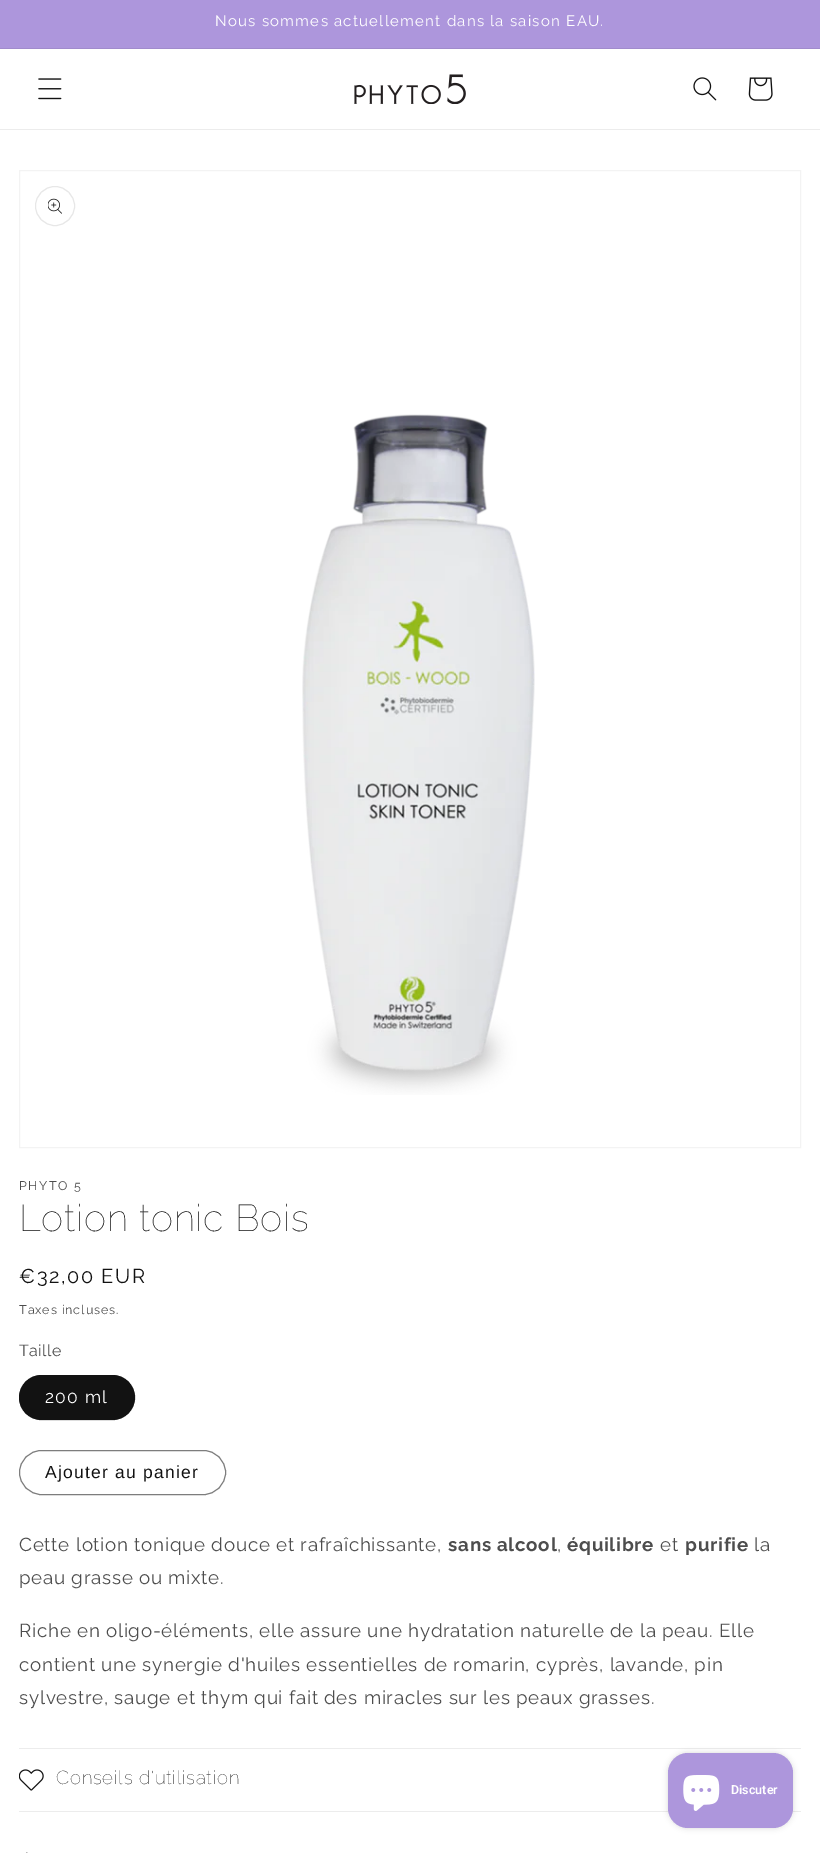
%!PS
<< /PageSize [820 1853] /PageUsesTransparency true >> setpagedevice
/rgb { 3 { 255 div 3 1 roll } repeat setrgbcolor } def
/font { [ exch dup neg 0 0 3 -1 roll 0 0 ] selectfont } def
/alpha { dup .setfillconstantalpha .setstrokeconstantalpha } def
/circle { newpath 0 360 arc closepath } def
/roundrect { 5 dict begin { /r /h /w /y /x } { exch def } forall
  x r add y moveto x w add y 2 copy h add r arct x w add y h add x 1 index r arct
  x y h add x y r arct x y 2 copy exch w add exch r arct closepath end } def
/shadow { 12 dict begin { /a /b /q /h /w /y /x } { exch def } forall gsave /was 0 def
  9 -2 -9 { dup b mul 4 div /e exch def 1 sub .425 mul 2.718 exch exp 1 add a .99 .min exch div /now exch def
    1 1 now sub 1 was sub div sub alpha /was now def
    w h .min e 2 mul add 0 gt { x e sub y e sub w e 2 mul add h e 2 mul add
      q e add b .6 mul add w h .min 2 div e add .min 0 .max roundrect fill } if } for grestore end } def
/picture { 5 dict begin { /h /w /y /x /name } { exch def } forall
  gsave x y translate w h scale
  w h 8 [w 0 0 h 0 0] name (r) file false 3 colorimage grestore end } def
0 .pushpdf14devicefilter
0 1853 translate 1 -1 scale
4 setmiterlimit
255 255 255 rgb
0 0 820 1853 rectfill
[
  [0 0 820 48 173 150 220]
  [0 48 820 1 161 139 204]
  [0 129 820 1 236 236 236]
] { aload pop rgb rectfill } forall
(img/1.rgb) 38 78 24 22 picture
(img/2.rgb) 354 74 112 30 picture
(img/3.rgb) 693 77 24 24 picture
(img/4.rgb) 748 77 25 24 picture
243 243 243 rgb
19.5 170.5 781 977 rectstroke
231 231 231 rgb
55 206 19.5 circle stroke
(img/5.rgb) 48 198 14 16 picture
(img/6.rgb) 302 414 233 681 picture
18 18 18 rgb
19 1375 116 45 22.5 roundrect fill
0.55 alpha
19.5 1375.5 115 44 22 roundrect stroke
1 alpha
125 125 125 rgb
19.5 1450.5 206 44 22 roundrect stroke
236 236 236 rgb
19 1748 782 1 rectfill
19 1811 782 1 rectfill
(img/7.rgb) 19 1769 25 22 picture
(img/8.rgb) 26 1852 2 1 picture
0 0 0 rgb
668 1753 125 75 20 3 0.15 shadow
173 150 220 rgb
668 1753 125 75 20 roundrect fill
(img/9.rgb) 683 1775 37 36 picture
/Raleway-Regular 15 font
255 255 255 rgb
215 26 moveto 1.25 0 (Nous sommes actuellement dans la saison EAU.) ashow
/Raleway-Regular 12.5 font
77 77 77 rgb
19 1190 moveto 1.6 0 (PHYTO 5) ashow
/Raleway-Thin 37.5 font
18 18 18 rgb
19 1231 moveto 0.75 0 (Lotion tonic Bois) ashow
/Raleway-Regular 20 font
19 1283 moveto 1.6 0 (€32,00 EUR) ashow
/Raleway-Regular 12.5 font
77 77 77 rgb
19 1314 moveto 0.9 0 (Taxes incluses.) ashow
/Raleway-Regular 16 font
19 1356 moveto 0.5 0 (Taille) ashow
/Raleway-Regular 17.5 font
255 255 255 rgb
45 1403 moveto 1.25 0 (200 ml) ashow
/LiberationSans-Regular 17.5 font
18 18 18 rgb
45 1478 moveto 1.25 0 (Ajouter au panier) ashow
/Raleway-Regular 18.75 font
77 77 77 rgb
19 1551 moveto 0.75 0 (Cette lotion tonique douce et rafraîchissante,) ashow
/Raleway-Bold 18.75 font
448 1551 moveto 0.75 0 (sans alcool) ashow
/Raleway-Regular 18.75 font
557 1551 moveto 0.75 0 (,) ashow
/Raleway-Bold 18.75 font
567 1551 moveto 0.75 0 (équilibre) ashow
/Raleway-Regular 18.75 font
660 1551 moveto 0.75 0 (et) ashow
/Raleway-Bold 18.75 font
685 1551 moveto 0.75 0 (purifie) ashow
/Raleway-Regular 18.75 font
754 1551 moveto 0.75 0 (la) ashow
19 1584 moveto 0.75 0 (peau grasse ou mixte.) ashow
19 1637 moveto 0.75 0 (Riche en oligo-éléments, elle assure une hydratation naturelle de la peau. Elle) ashow
19 1671 moveto 0.75 0 (contient une synergie d'huiles essentielles de romarin, cyprès, lavande, pin) ashow
19 1704 moveto 0.75 0 (sylvestre, sauge et thym qui fait des miracles sur les peaux grasses.) ashow
/Raleway-Thin 18.75 font
18 18 18 rgb
56 1784 moveto 0.75 0 (Conseils d'utilisation) ashow
/Roboto-SemiBold 12.5 font
255 255 255 rgb
731 1794 moveto (Discuter) show
.poppdf14devicefilter showpage
